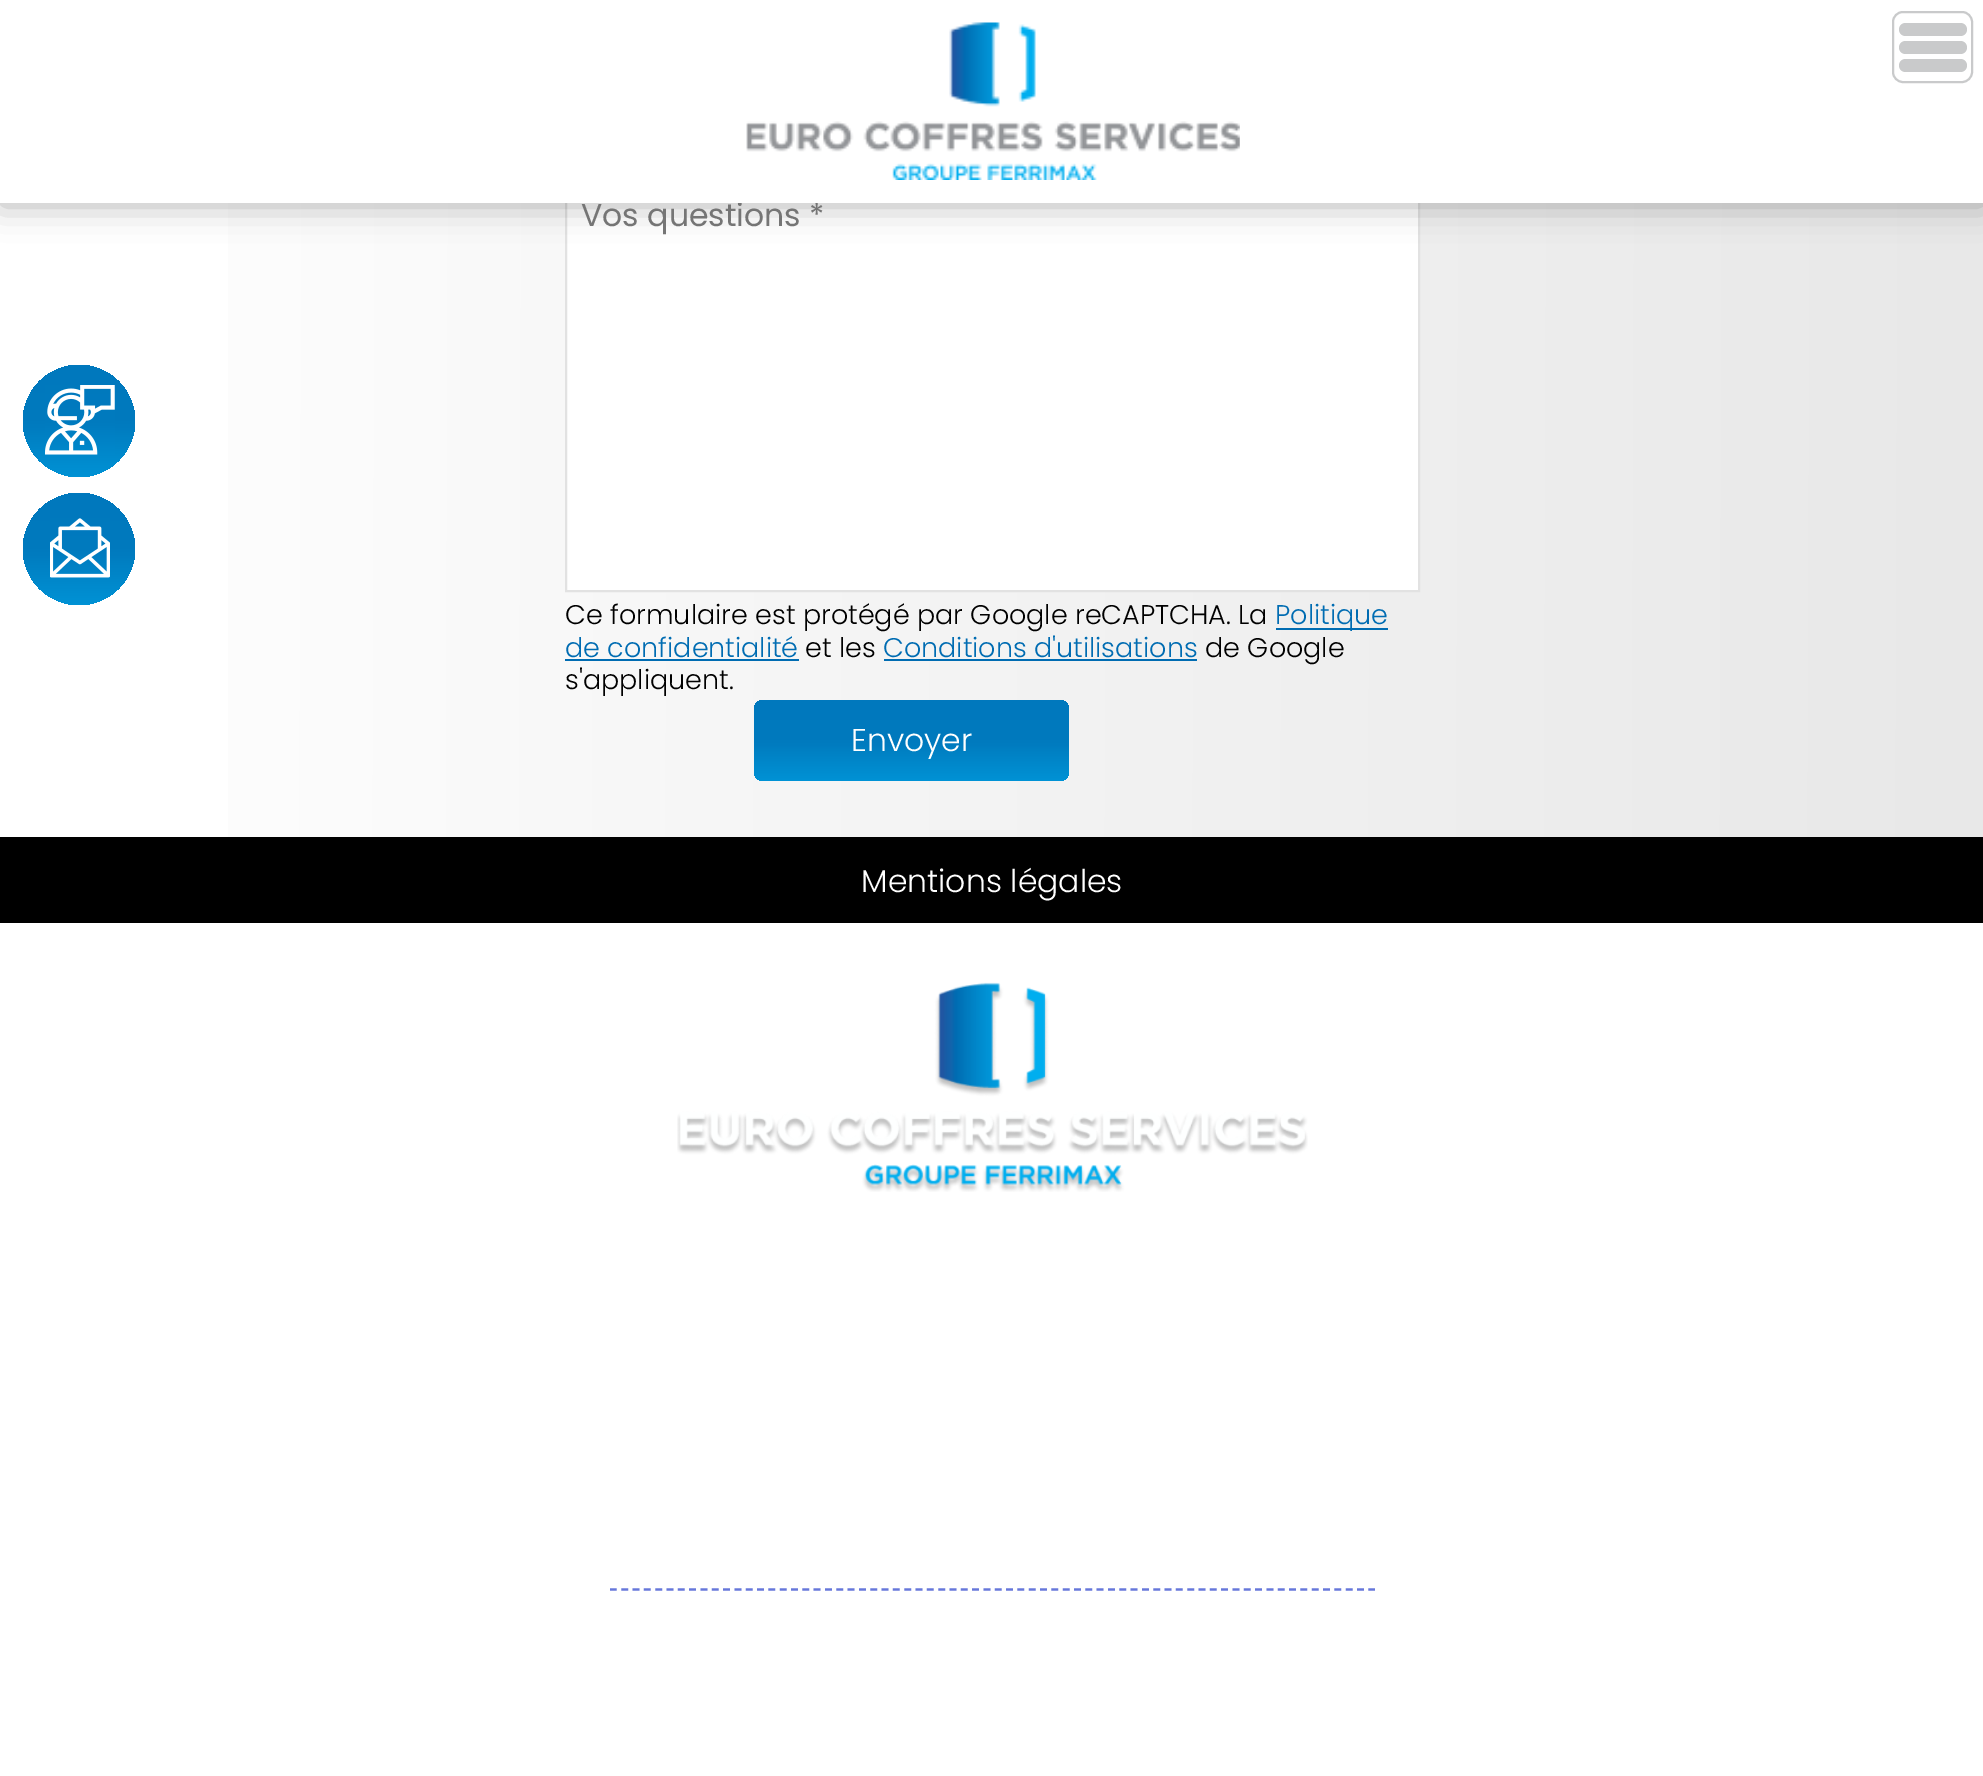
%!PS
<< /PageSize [1983 1776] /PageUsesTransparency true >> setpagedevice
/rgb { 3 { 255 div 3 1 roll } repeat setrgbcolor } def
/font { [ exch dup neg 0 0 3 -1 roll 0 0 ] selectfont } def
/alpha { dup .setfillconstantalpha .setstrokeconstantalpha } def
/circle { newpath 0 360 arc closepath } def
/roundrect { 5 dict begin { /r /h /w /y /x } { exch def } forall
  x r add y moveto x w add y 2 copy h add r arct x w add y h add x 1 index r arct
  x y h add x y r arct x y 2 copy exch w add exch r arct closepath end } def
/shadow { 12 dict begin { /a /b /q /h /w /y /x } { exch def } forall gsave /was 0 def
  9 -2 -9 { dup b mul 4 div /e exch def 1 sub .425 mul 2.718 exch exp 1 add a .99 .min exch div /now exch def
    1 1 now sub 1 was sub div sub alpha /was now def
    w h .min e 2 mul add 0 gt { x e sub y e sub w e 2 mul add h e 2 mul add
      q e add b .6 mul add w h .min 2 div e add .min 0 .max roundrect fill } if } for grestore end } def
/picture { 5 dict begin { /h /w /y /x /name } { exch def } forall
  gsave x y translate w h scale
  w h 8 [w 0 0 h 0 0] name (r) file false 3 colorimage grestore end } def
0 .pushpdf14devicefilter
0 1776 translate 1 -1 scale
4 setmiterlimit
255 255 255 rgb
0 0 1983 1776 rectfill
gsave 228 203 moveto 1983 203 lineto 1983 837 lineto 228 837 lineto closepath clip newpath
<< /ShadingType 2 /ColorSpace /DeviceRGB /Coords [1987 10 -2.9 3.3] /Extend [true true] /Function << /FunctionType 3 /Domain [0 1] /Functions [<< /FunctionType 2 /Domain [0 1] /C0 [0.91 0.91 0.91] /C1 [1 1 1] /N 1 >> << /FunctionType 2 /Domain [0 1] /C0 [1 1 1] /C1 [1 1 1] /N 1 >>] /Bounds [0.99] /Encode [0 1 0 1] >> >> shfill grestore
567 203 851 387 rectfill
226 226 226 rgb
2 setlinewidth
566 183 853 408 rectstroke
0 0 0 rgb
0 2 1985 203 0 17 0.3 shadow
gsave 79 421 56 circle clip newpath
<< /ShadingType 2 /ColorSpace /DeviceRGB /Coords [79 365 79 477] /Extend [true true] /Function << /FunctionType 3 /Domain [0 1] /Functions [<< /FunctionType 2 /Domain [0 1] /C0 [0 0.471 0.741] /C1 [0 0.478 0.745] /N 1 >> << /FunctionType 2 /Domain [0 1] /C0 [0 0.478 0.745] /C1 [0 0.573 0.835] /N 1 >>] /Bounds [0.51] /Encode [0 1 0 1] >> >> shfill grestore
(img/2.rgb) 45 385 70 70 picture
gsave 79 549 56 circle clip newpath
<< /ShadingType 2 /ColorSpace /DeviceRGB /Coords [79 493 79 605] /Extend [true true] /Function << /FunctionType 3 /Domain [0 1] /Functions [<< /FunctionType 2 /Domain [0 1] /C0 [0 0.471 0.741] /C1 [0 0.478 0.745] /N 1 >> << /FunctionType 2 /Domain [0 1] /C0 [0 0.478 0.745] /C1 [0 0.573 0.835] /N 1 >>] /Bounds [0.51] /Encode [0 1 0 1] >> >> shfill grestore
(img/3.rgb) 50 518 60 60 picture
[
  [1276 628 112 2 0 108 178]
  [565 659 234 2 0 108 178]
  [884 659 313 2 0 108 178]
] { aload pop rgb rectfill } forall
gsave 754 700 315 81 9 roundrect clip newpath
<< /ShadingType 2 /ColorSpace /DeviceRGB /Coords [911 700 911 781] /Extend [true true] /Function << /FunctionType 3 /Domain [0 1] /Functions [<< /FunctionType 2 /Domain [0 1] /C0 [0 0.471 0.741] /C1 [0 0.478 0.745] /N 1 >> << /FunctionType 2 /Domain [0 1] /C0 [0 0.478 0.745] /C1 [0 0.573 0.835] /N 1 >>] /Bounds [0.51] /Encode [0 1 0 1] >> >> shfill grestore
0 0 0 rgb
0 837 1983 86 rectfill
(img/4.rgb) 677 982 631 210 picture
102 119 218 rgb
2.2 setlinewidth
[6.75 4.57] 0 setdash
610 1589.5 moveto 1375 1589.5 lineto stroke
/Poppins-Regular 31.5 font
117 117 117 rgb
581 226 moveto (Vos questions *) show
255 255 255 rgb
0 0 1983 203 rectfill
201 202 203 rgb
2 setlinewidth
[] 0 setdash
1893 12 79 70 10 roundrect stroke
1899 59 68 13 6.5 roundrect fill
1899 23 68 13 6.5 roundrect fill
1899 41 68 13 6.5 roundrect fill
(img/1.rgb) 746 22 494 158 picture
/Poppins-Light 27 font
0 0 0 rgb
565 624 moveto (Ce formulaire est protégé par Google reCAPTCHA. La) show
0 108 178 rgb
1275 624 moveto (Politique) show
565 657 moveto (de confidentialité) show
0 0 0 rgb
805 657 moveto (et les) show
0 108 178 rgb
883 657 moveto (Conditions d'utilisations) show
0 0 0 rgb
1205 657 moveto (de Google) show
565 689 moveto (s'appliquent.) show
/Poppins-Light 31.5 font
255 255 255 rgb
851 751 moveto (Envoyer) show
861 892 moveto (Mentions légales) show
.poppdf14devicefilter showpage
